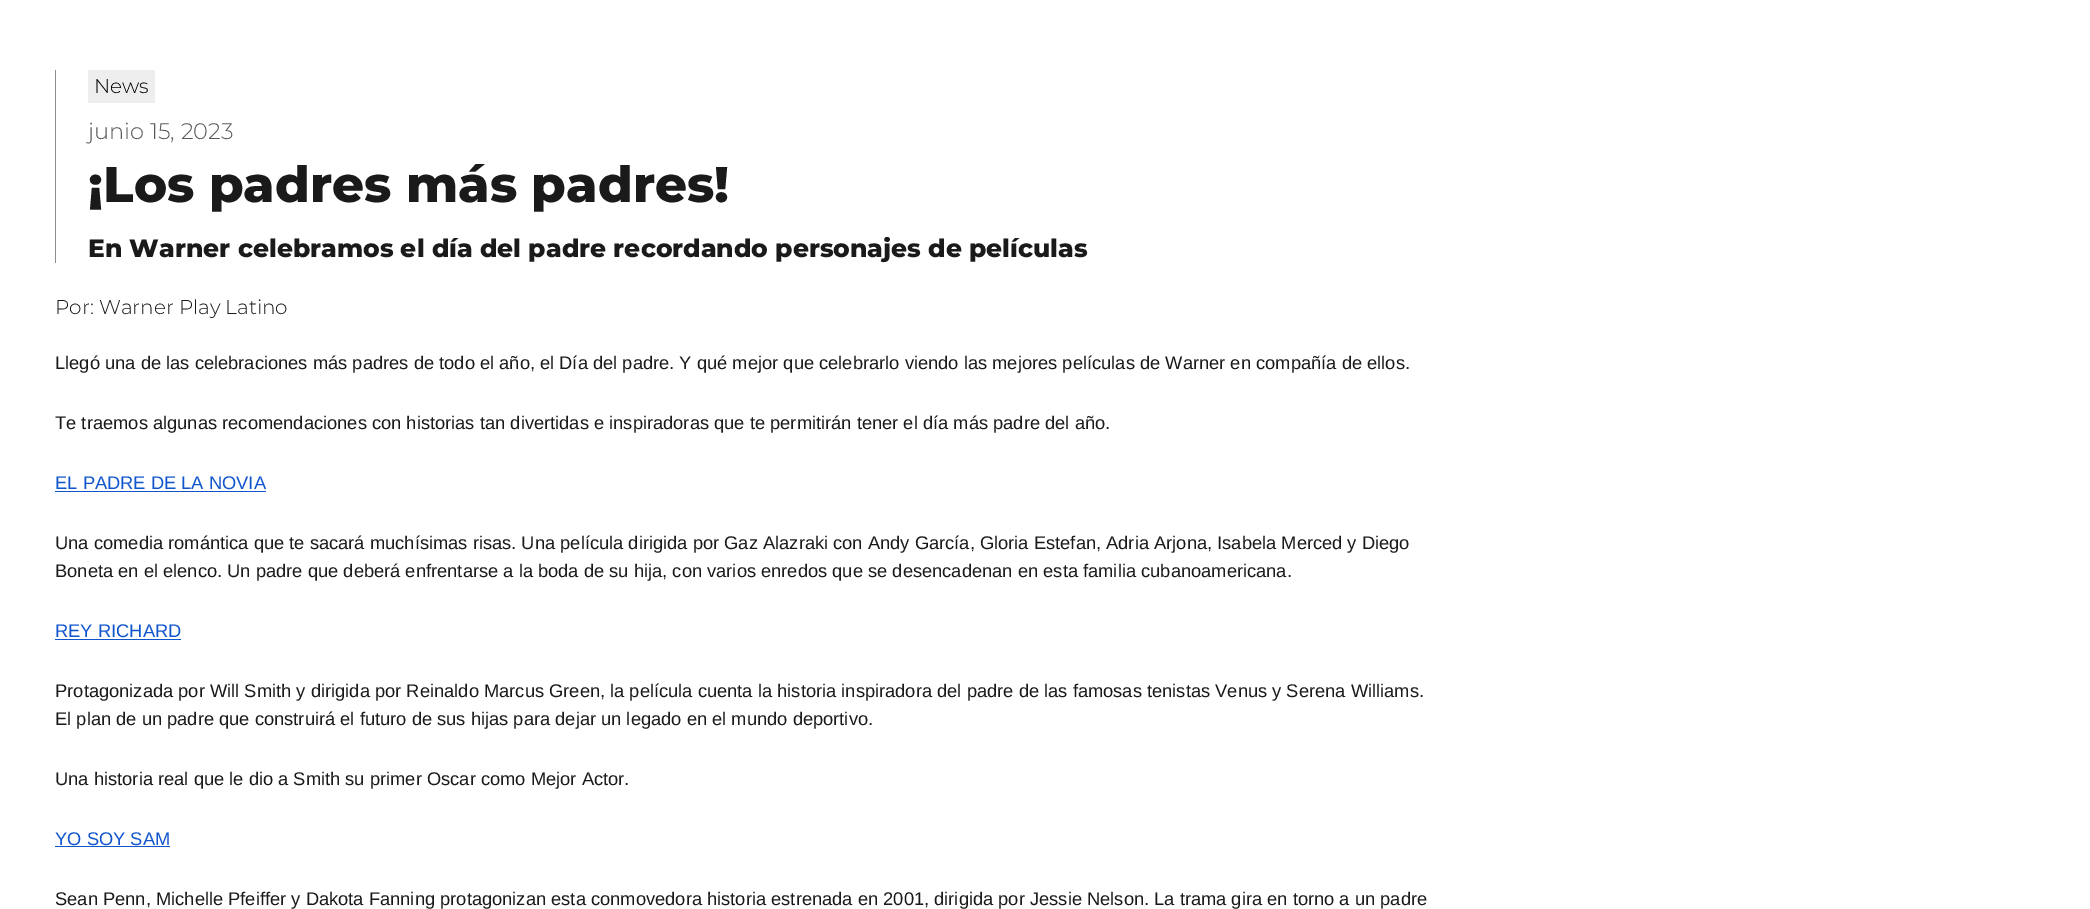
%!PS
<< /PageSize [2090 909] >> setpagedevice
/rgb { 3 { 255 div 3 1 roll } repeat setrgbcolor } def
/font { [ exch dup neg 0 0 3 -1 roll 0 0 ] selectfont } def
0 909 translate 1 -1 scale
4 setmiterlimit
255 255 255 rgb
0 0 2090 909 rectfill
[
  [55 70 1 193 142 142 142]
  [88 70 67 33 238 238 238]
  [55 491 211 1 17 85 204]
  [55 639 126 1 17 85 204]
  [55 846 115 1 17 85 204]
] { aload pop rgb rectfill } forall
/Montserrat-Light 20 font
0 0 0 rgb
94 93 moveto (News) show
/Montserrat-Light 22.5 font
89 89 89 rgb
88 139 moveto (junio 15, 2023) show
/Montserrat-ExtraBold 50 font
26 26 26 rgb
88 202 moveto (¡Los padres más padres!) show
/Montserrat-ExtraBold 25 font
88 257 moveto (En Warner celebramos el día del padre recordando personajes de películas) show
/Montserrat-Light 20 font
55 314 moveto (Por: Warner Play Latino) show
/LiberationSans-Regular 18.33 font
55 369 moveto (Llegó una de las celebraciones más padres de todo el año, el Día del padre. Y qué mejor que celebrarlo viendo las mejores películas de Warner en compañía de ellos.) show
55 429 moveto (Te traemos algunas recomendaciones con historias tan divertidas e inspiradoras que te permitirán tener el día más padre del año.) show
17 85 204 rgb
55 489 moveto (EL PADRE DE LA NOVIA) show
26 26 26 rgb
55 549 moveto (Una comedia romántica que te sacará muchísimas risas. Una película dirigida por Gaz Alazraki con Andy García, Gloria Estefan, Adria Arjona, Isabela Merced y Diego) show
55 577 moveto (Boneta en el elenco. Un padre que deberá enfrentarse a la boda de su hija, con varios enredos que se desencadenan en esta familia cubanoamericana.) show
17 85 204 rgb
55 637 moveto (REY RICHARD) show
26 26 26 rgb
[
  [(Protagonizada por Will Smith y dirigida por Reinaldo Marcus Green, la película cuenta la historia inspiradora del padre de las famosas tenistas Venus y Serena Williams.) 55 697]
  [(El plan de un padre que construirá el futuro de sus hijas para dejar un legado en el mundo deportivo.) 55 725]
  [(Una historia real que le dio a Smith su primer Oscar como Mejor Actor.) 55 785]
] { aload pop moveto show } forall
17 85 204 rgb
55 845 moveto (YO SOY SAM) show
26 26 26 rgb
55 905 moveto (Sean Penn, Michelle Pfeiffer y Dakota Fanning protagonizan esta conmovedora historia estrenada en 2001, dirigida por Jessie Nelson. La trama gira en torno a un padre) show
showpage
